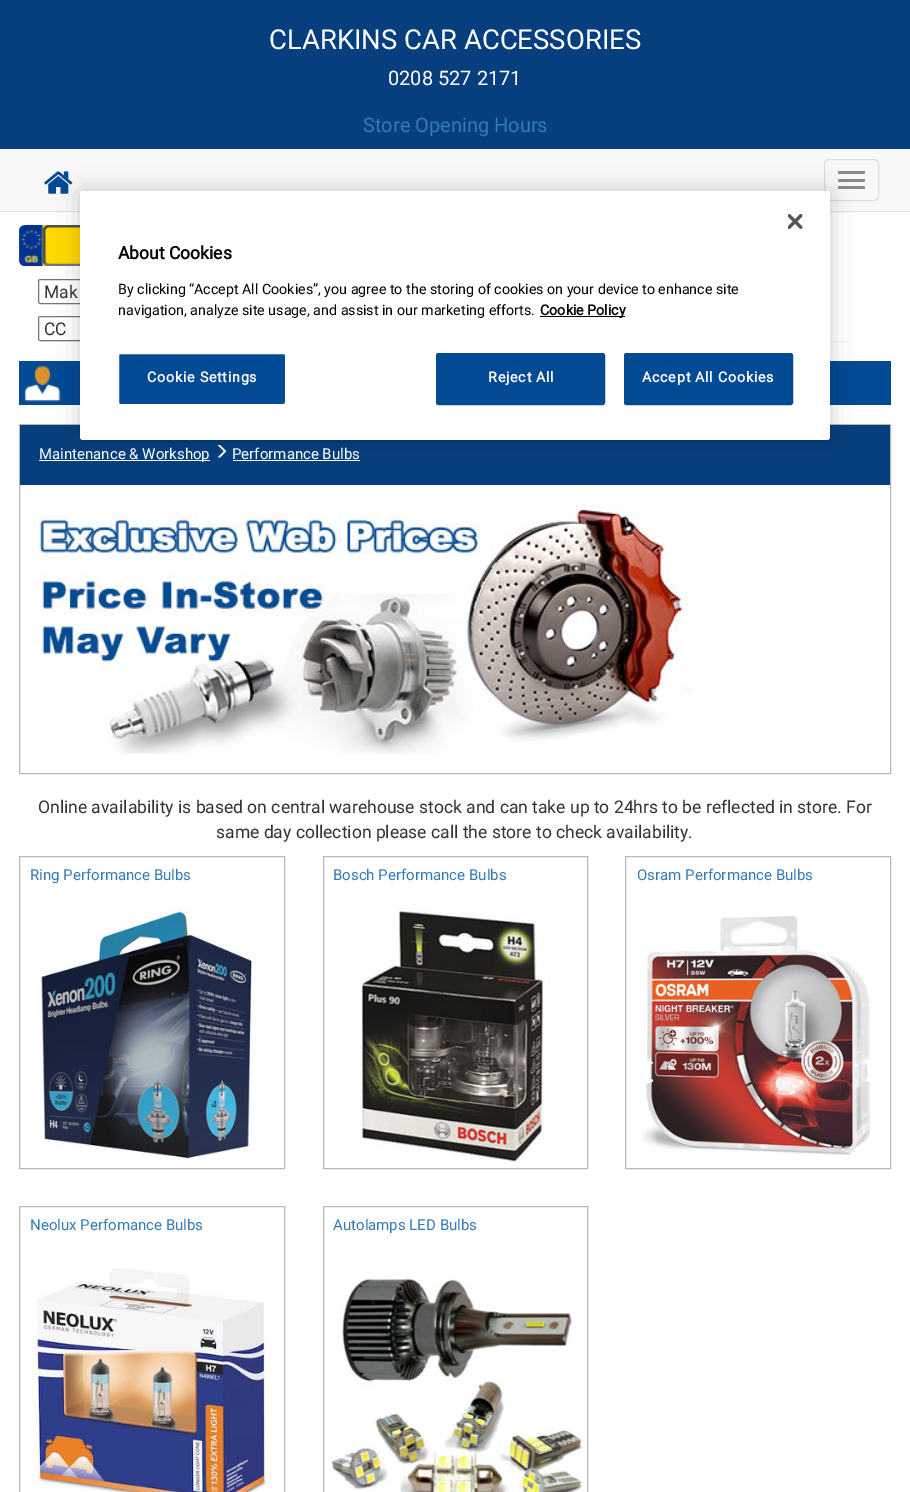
%!PS
<< /PageSize [910 1492] /PageUsesTransparency true >> setpagedevice
/rgb { 3 { 255 div 3 1 roll } repeat setrgbcolor } def
/font { [ exch dup neg 0 0 3 -1 roll 0 0 ] selectfont } def
/alpha { dup .setfillconstantalpha .setstrokeconstantalpha } def
/roundrect { 5 dict begin { /r /h /w /y /x } { exch def } forall
  x r add y moveto x w add y 2 copy h add r arct x w add y h add x 1 index r arct
  x y h add x y r arct x y 2 copy exch w add exch r arct closepath end } def
/shadow { 12 dict begin { /a /b /q /h /w /y /x } { exch def } forall gsave /was 0 def
  9 -2 -9 { dup b mul 4 div /e exch def 1 sub .425 mul 2.718 exch exp 1 add a .99 .min exch div /now exch def
    1 1 now sub 1 was sub div sub alpha /was now def
    w h .min e 2 mul add 0 gt { x e sub y e sub w e 2 mul add h e 2 mul add
      q e add b .6 mul add w h .min 2 div e add .min 0 .max roundrect fill } if } for grestore end } def
/picture { 5 dict begin { /h /w /y /x /name } { exch def } forall
  gsave x y translate w h scale
  w h 8 [w 0 0 h 0 0] name (r) file false 3 colorimage grestore end } def
0 .pushpdf14devicefilter
0 1492 translate 1 -1 scale
4 setmiterlimit
7 63 126 rgb
0 0 910 1492 rectfill
248 248 248 rgb
0 149 910 64 rectfill
226 226 226 rgb
0 211 910 1 rectfill
(img/1.rgb) 44 171 29 23 picture
221 221 221 rgb
824.5 159.5 54 41 4.5 roundrect stroke
136 136 136 rgb
838 171 27 3 1.5 roundrect fill
838 179 27 3 1.5 roundrect fill
838 186 27 3 1.5 roundrect fill
255 255 255 rgb
0 213 910 1279 rectfill
248 248 248 rgb
0 341 910 1 rectfill
255 216 0 rgb
19 225 741 41 6 roundrect fill
(img/2.rgb) 19 225 24 42 picture
gsave
19 225 872 41 rectclip
118 118 118 rgb
2.5 setlinewidth
757.5 227.5 moveto 758.5 230.5 lineto 758.5 261.5 lineto 758 263.5 756 265 754 265 curveto 49 265 lineto 47.5 265 46 264.5 45 263.5 curveto stroke
79 79 79 rgb
45 263.5 moveto 44 261 lineto 44 230 lineto 44.5 227.5 46.5 226.5 49 226 curveto 754 226 lineto 755 226.5 756.5 227 757.5 227.5 curveto stroke
grestore
118 118 118 rgb
38.5 279.5 241 24 2 roundrect stroke
38.5 316.5 241 24 2 roundrect stroke
2 74 147 rgb
19 361 61 44 rectfill
(img/3.rgb) 24 366 37 36 picture
830 361 61 44 rectfill
184 184 184 rgb
19.5 424.5 871 349 rectstroke
7 63 126 rgb
20 425 870 60 rectfill
255 255 255 rgb
39 460 171 1 rectfill
(img/4.rgb) 217 445 10 13 picture
233 460 127 1 rectfill
(img/5.rgb) 39 504 654 250 picture
184 184 184 rgb
19.5 856.5 265 312 rectstroke
(img/6.rgb) 39 907 217 252 picture
323.5 856.5 264 312 rectstroke
(img/7.rgb) 361 907 184 255 picture
625.5 856.5 265 312 rectstroke
(img/8.rgb) 641 915 229 240 picture
19.5 1206.5 265 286 rectstroke
(img/9.rgb) 34 1268 236 224 picture
323.5 1206.5 264 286 rectstroke
(img/10.rgb) 331 1278 251 214 picture
0 0 0 rgb
80 191 750 249 3 11 0.2 shadow
255 255 255 rgb
80 191 750 249 3 roundrect fill
(img/11.rgb) 788 214 15 15 picture
0 0 0 rgb
540 316 85 1 rectfill
2 74 147 rgb
118.5 353.5 167 51 2 roundrect gsave fill grestore
255 255 255 rgb
stroke
2 74 147 rgb
436.5 353.5 168 51 2 roundrect gsave fill grestore
stroke
624.5 353.5 168 51 2 roundrect gsave fill grestore
stroke
/Roboto-Regular 27.5 font
255 255 255 rgb
269 49 moveto (CLARKINS CAR ACCESSORIES) show
/Roboto-Regular 20 font
388 85 moveto (0208 527 2171) show
51 122 183 rgb
363 132 moveto (Store Opening Hours) show
/Roboto-Regular 17.5 font
51 51 51 rgb
44 298 moveto (Mak) show
44 335 moveto (CC) show
/Roboto-Regular 15 font
255 255 255 rgb
39 459 moveto (Maintenance & Workshop) show
232 459 moveto (Performance Bulbs) show
/Roboto-Regular 17.5 font
51 51 51 rgb
38 813 moveto (Online availability is based on central warehouse stock and can take up to 24hrs to be reflected in store. For) show
216 838 moveto (same day collection please call the store to check availability.) show
/Roboto-Regular 15 font
51 122 183 rgb
[
  [(Ring Performance Bulbs) 30 880]
  [(Bosch Performance Bulbs) 333 880]
  [(Osram Performance Bulbs) 637 880]
  [(Neolux Perfomance Bulbs) 30 1230]
  [(Autolamps LED Bulbs) 333 1230]
] { aload pop moveto show } forall
/Roboto-Bold 17.5 font
0 0 0 rgb
118 259 moveto (About Cookies) show
/Roboto-Regular 14.25 font
118 294 moveto (By clicking “Accept All Cookies”, you agree to the storing of cookies on your device to enhance site) show
118 315 moveto (navigation, analyze site usage, and assist in our marketing efforts.) show
/Roboto-Bold 14.25 font
540 315 moveto (Cookie Policy) show
255 255 255 rgb
147 382 moveto 0.75 0 (Cookie Settings) ashow
488 382 moveto 0.75 0 (Reject All) ashow
642 382 moveto 0.75 0 (Accept All Cookies) ashow
.poppdf14devicefilter showpage
